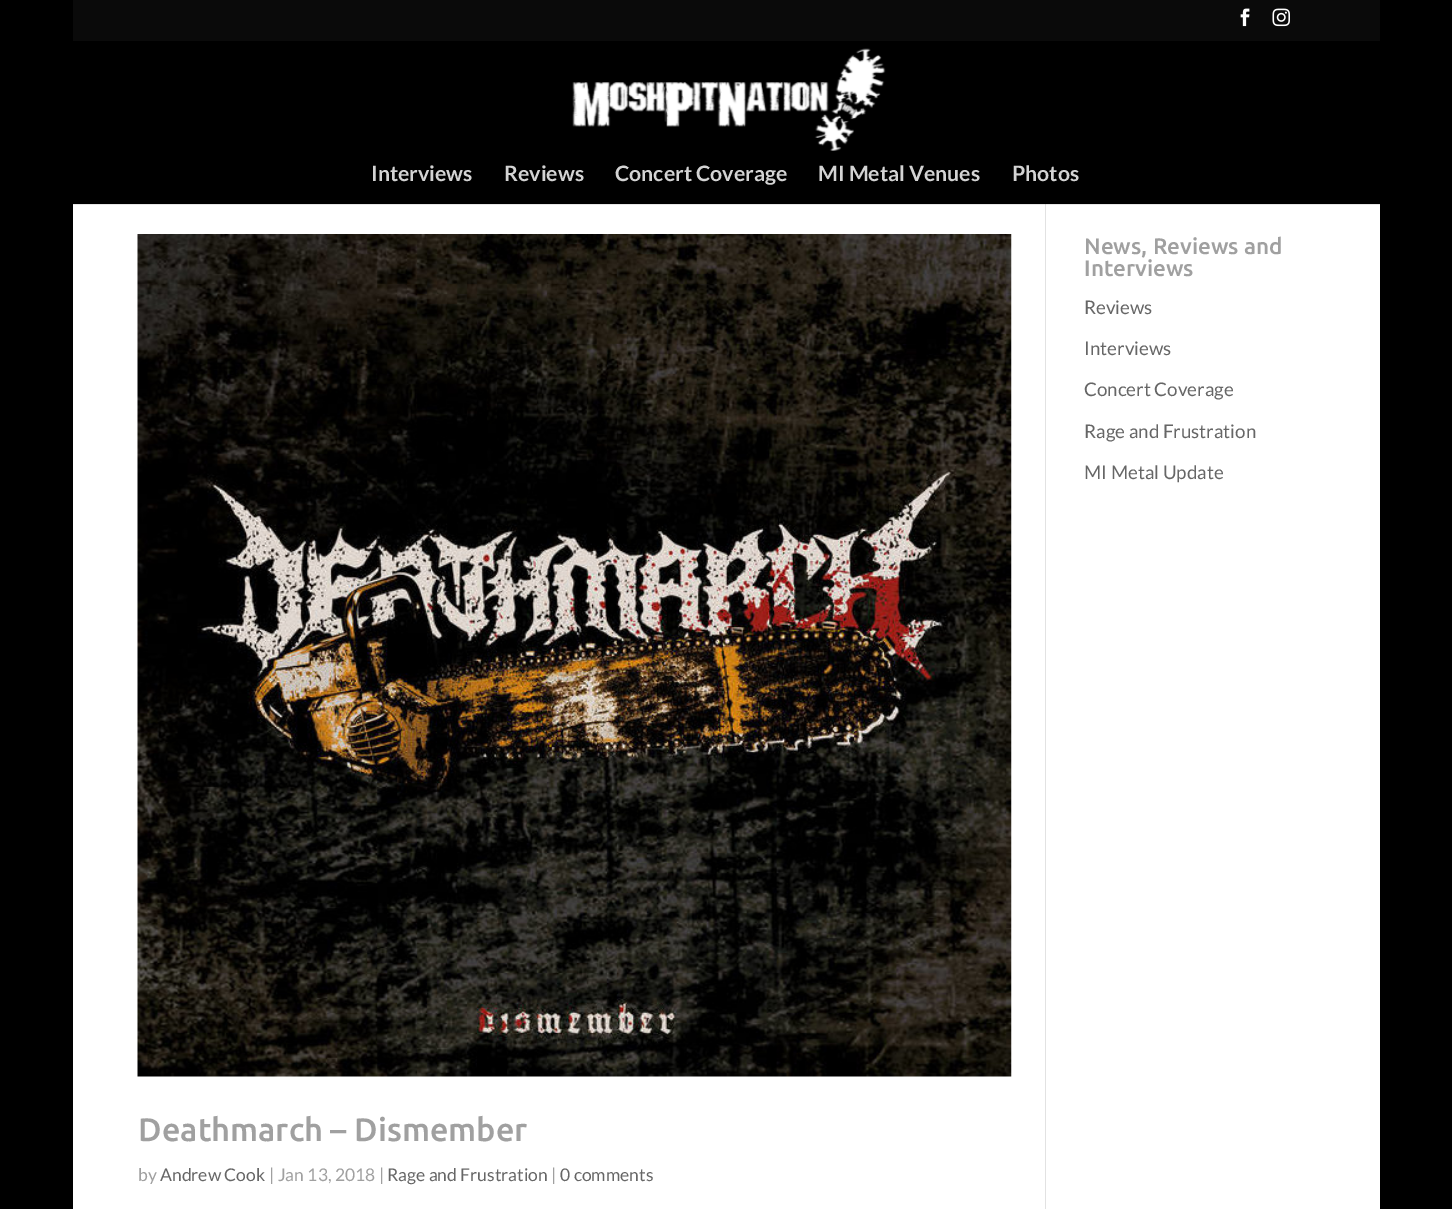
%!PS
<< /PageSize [1452 1209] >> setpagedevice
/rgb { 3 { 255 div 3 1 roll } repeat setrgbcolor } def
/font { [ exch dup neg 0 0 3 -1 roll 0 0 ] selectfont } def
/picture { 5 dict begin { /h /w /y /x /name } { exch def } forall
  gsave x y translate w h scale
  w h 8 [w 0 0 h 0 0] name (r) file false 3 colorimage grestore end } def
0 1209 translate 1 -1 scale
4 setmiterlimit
0 0 0 rgb
0 0 1452 1209 rectfill
10 10 10 rgb
73 0 1307 41 rectfill
(img/1.rgb) 1240 8 10 19 picture
(img/2.rgb) 1272 8 18 19 picture
(img/3.rgb) 572 48 314 103 picture
[
  [73 205 1307 1004 255 255 255]
  [73 204 1307 1 230 230 230]
  [1045 205 1 1004 226 226 226]
  [1045 204 1 1 203 203 203]
] { aload pop rgb rectfill } forall
(img/4.rgb) 137 234 875 843 picture
/Lato-Bold 21.25 font
211 211 211 rgb
[
  [(Interviews) 371 181]
  [(Reviews) 504 181]
  [(Concert Coverage) 615 181]
  [(MI Metal Venues) 818 181]
  [(Photos) 1012 181]
] { aload pop moveto show } forall
/Ubuntu-Medium 22.5 font
160 160 160 rgb
1084 254 moveto (News, Reviews and) show
1084 276 moveto (Interviews) show
/Lato-Regular 18.75 font
102 102 102 rgb
[
  [(Reviews) 1084 314]
  [(Interviews) 1084 355]
  [(Concert Coverage) 1084 396]
  [(Rage and Frustration) 1084 438]
  [(MI Metal Update) 1084 479]
] { aload pop moveto show } forall
/Ubuntu-Medium 32.5 font
160 160 160 rgb
138 1141 moveto (Deathmarch – Dismember) show
/Lato-Regular 17.5 font
138 1181 moveto (by) show
102 102 102 rgb
160 1181 moveto (Andrew Cook) show
160 160 160 rgb
269 1181 moveto (| Jan 13, 2018 |) show
102 102 102 rgb
387 1181 moveto (Rage and Frustration) show
160 160 160 rgb
551 1181 moveto (|) show
102 102 102 rgb
560 1181 moveto (0 comments) show
showpage
